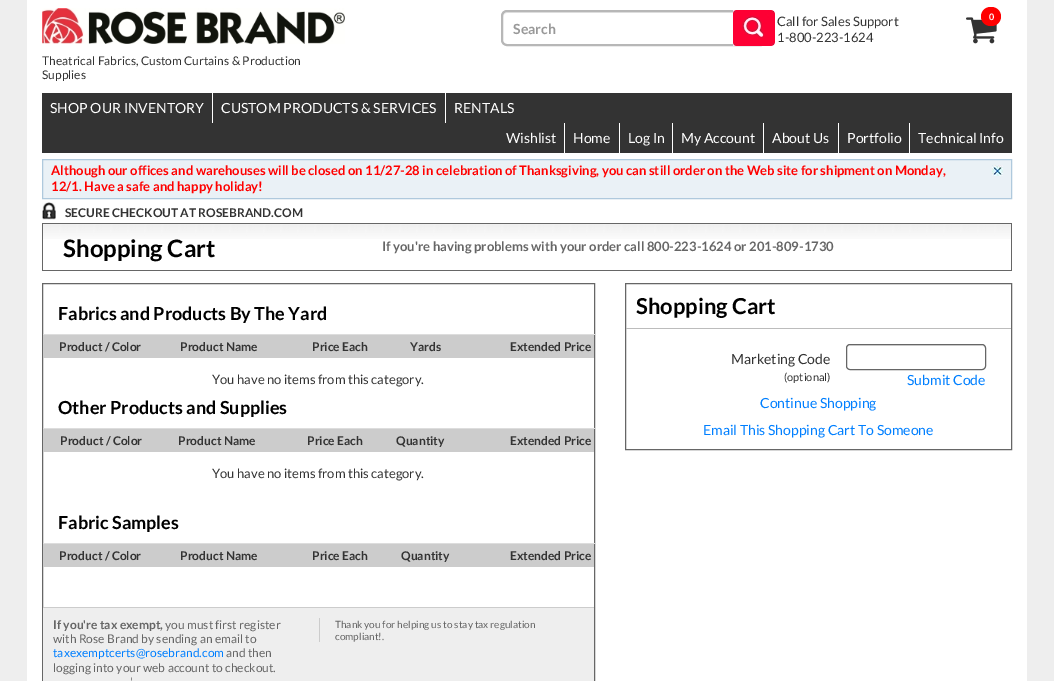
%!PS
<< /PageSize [1054 681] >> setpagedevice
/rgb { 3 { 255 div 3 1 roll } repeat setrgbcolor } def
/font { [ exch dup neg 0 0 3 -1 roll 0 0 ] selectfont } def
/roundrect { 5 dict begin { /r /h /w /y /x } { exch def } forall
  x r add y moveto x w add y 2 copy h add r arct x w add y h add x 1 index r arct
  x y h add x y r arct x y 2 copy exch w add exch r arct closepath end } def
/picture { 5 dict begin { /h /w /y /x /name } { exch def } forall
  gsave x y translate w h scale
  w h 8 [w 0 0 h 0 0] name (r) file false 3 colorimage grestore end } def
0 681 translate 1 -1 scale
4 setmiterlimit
238 238 238 rgb
0 0 1054 681 rectfill
255 255 255 rgb
27 0 1000 681 rectfill
236 236 236 rgb
507 13 moveto 761 13 lineto 763 13 765 15 765 17 curveto 765 16 lineto 765 14 763 12 761 12 curveto 507 12 lineto 505 12 503 14 503 16 curveto 503 17 lineto 503 15 505 13 507 13 curveto closepath fill
183 183 183 rgb
2 setlinewidth
502 11 264 34 5 roundrect stroke
(img/1.rgb) 733 10 42 36 picture
(img/2.rgb) 966 17 31 27 picture
255 0 0 rgb
981 7 20 19 9.5 roundrect fill
(img/3.rgb) 42 8 303 36 picture
[
  [42 93 970 60 51 51 51]
  [212 93 1 30 255 255 255]
  [445 93 1 30 255 255 255]
  [564 123 1 30 255 255 255]
  [619 123 1 30 255 255 255]
  [672 123 1 30 255 255 255]
  [763 123 1 30 255 255 255]
  [838 123 1 30 255 255 255]
  [909 123 1 30 255 255 255]
] { aload pop rgb rectfill } forall
234 241 246 rgb
42.5 159.5 moveto 1011.5 159.5 lineto 1011.5 198.5 lineto 42.5 198.5 lineto closepath gsave fill grestore
175 201 221 rgb
1 setlinewidth
stroke
(img/4.rgb) 992 165 11 11 picture
(img/5.rgb) 42 202 14 18 picture
[
  [42 223 970 1 102 102 102]
  [1011 223 1 47 102 102 102]
  [42 223 1 47 102 102 102]
] { aload pop rgb rectfill } forall
(img/6.rgb) 43 224 968 15 picture
42 270 970 1 rectfill
42.5 283.5 552 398 rectstroke
[
  [43 334 8 24 204 204 204]
  [51 335 543 23 204 204 204]
  [43 334 552 1 221 221 221]
  [43 429 551 23 204 204 204]
  [43 428 552 1 221 221 221]
  [43 543 8 24 204 204 204]
  [51 544 543 23 204 204 204]
  [43 543 552 1 221 221 221]
  [43 608 551 73 238 238 238]
  [43 607 551 1 204 204 204]
  [319 618 1 24 204 204 204]
] { aload pop rgb rectfill } forall
102 102 102 rgb
625.5 283.5 386 166 rectstroke
188 188 188 rgb
626 328 385 1 rectfill
236 236 236 rgb
850 346 moveto 982 346 lineto 984 346 985 347 985 349 curveto 985 347 985 345 983 345 curveto 849 345 lineto 847 345 847 347 847 349 curveto 847 347 848 346 850 346 curveto closepath fill
102 102 102 rgb
846.5 344.5 139 25 3.5 roundrect stroke
/Lato-Bold 14 font
153 153 153 rgb
513 34 moveto (Search) show
/Lato-Regular 13 font
51 51 51 rgb
777 26 moveto (Call for Sales Support) show
777 42 moveto (1-800-223-1624) show
/Lato-Bold 9 font
255 255 255 rgb
989 20 moveto (0) show
/Lato-Regular 12 font
51 51 51 rgb
42 65 moveto (Theatrical Fabrics, Custom Curtains & Production) show
42 79 moveto (Supplies) show
/Lato-Regular 14 font
255 255 255 rgb
[
  [(SHOP OUR INVENTORY) 50 113]
  [(CUSTOM PRODUCTS & SERVICES) 221 113]
  [(RENTALS) 454 113]
  [(Wishlist) 506 143]
  [(Home) 573 143]
  [(Log In) 628 143]
  [(My Account) 681 143]
  [(About Us) 772 143]
  [(Portfolio) 847 143]
  [(Technical Info) 918 143]
] { aload pop moveto show } forall
/Lato-Bold 13 font
255 0 0 rgb
51 175 moveto (Although our offices and warehouses will be closed on 11/27-28 in celebration of Thanksgiving, you can still order on the Web site for shipment on Monday,) show
51 191 moveto (12/1. Have a safe and happy holiday!) show
/Lato-Bold 12 font
51 51 51 rgb
65 217 moveto (SECURE CHECKOUT AT ROSEBRAND.COM) show
/Lato-Bold 24 font
0 0 0 rgb
63 257 moveto (Shopping Cart) show
/Lato-Bold 13 font
102 102 102 rgb
382 251 moveto (If you're having problems with your order call 800-223-1624 or 201-809-1730) show
/Lato-Bold 18 font
0 0 0 rgb
58 320 moveto (Fabrics and Products By The Yard) show
/Lato-Bold 12 font
51 51 51 rgb
[
  [(Product / Color) 59 351]
  [(Product Name) 180 351]
  [(Price Each) 312 351]
  [(Yards) 410 351]
  [(Extended Price) 510 351]
] { aload pop moveto show } forall
/Lato-Regular 13 font
212 384 moveto (You have no items from this category.) show
/Lato-Bold 18 font
0 0 0 rgb
58 414 moveto (Other Products and Supplies) show
/Lato-Bold 12 font
51 51 51 rgb
[
  [(Product / Color) 60 445]
  [(Product Name) 178 445]
  [(Price Each) 307 445]
  [(Quantity) 396 445]
  [(Extended Price) 510 445]
] { aload pop moveto show } forall
/Lato-Regular 13 font
212 478 moveto (You have no items from this category.) show
/Lato-Bold 18 font
0 0 0 rgb
58 529 moveto (Fabric Samples) show
/Lato-Bold 12 font
51 51 51 rgb
[
  [(Product / Color) 59 560]
  [(Product Name) 180 560]
  [(Price Each) 312 560]
  [(Quantity) 401 560]
  [(Extended Price) 510 560]
] { aload pop moveto show } forall
102 102 102 rgb
53 629 moveto (If you're tax exempt,) show
/Lato-Regular 12 font
165 629 moveto (you must first register) show
53 643 moveto (with Rose Brand by sending an email to) show
0 127 255 rgb
53 657 moveto (taxexemptcerts@rosebrand.com) show
102 102 102 rgb
[
  [(and then) 226 657]
  [(logging into your web account to checkout.) 53 672]
  [(') 130 686]
] { aload pop moveto show } forall
/Lato-Regular 10 font
335 628 moveto (Thank you for helping us to stay tax regulation) show
335 640 moveto (compliant!.) show
/Lato-Bold 22 font
0 0 0 rgb
636 314 moveto (Shopping Cart) show
/Lato-Regular 14 font
51 51 51 rgb
731 364 moveto (Marketing Code) show
/Lato-Regular 11 font
784 381 moveto (\(optional\)) show
/Lato-Regular 14 font
0 127 255 rgb
[
  [(Submit Code) 907 385]
  [(Continue Shopping) 760 408]
  [(Email This Shopping Cart To Someone) 703 435]
] { aload pop moveto show } forall
showpage
